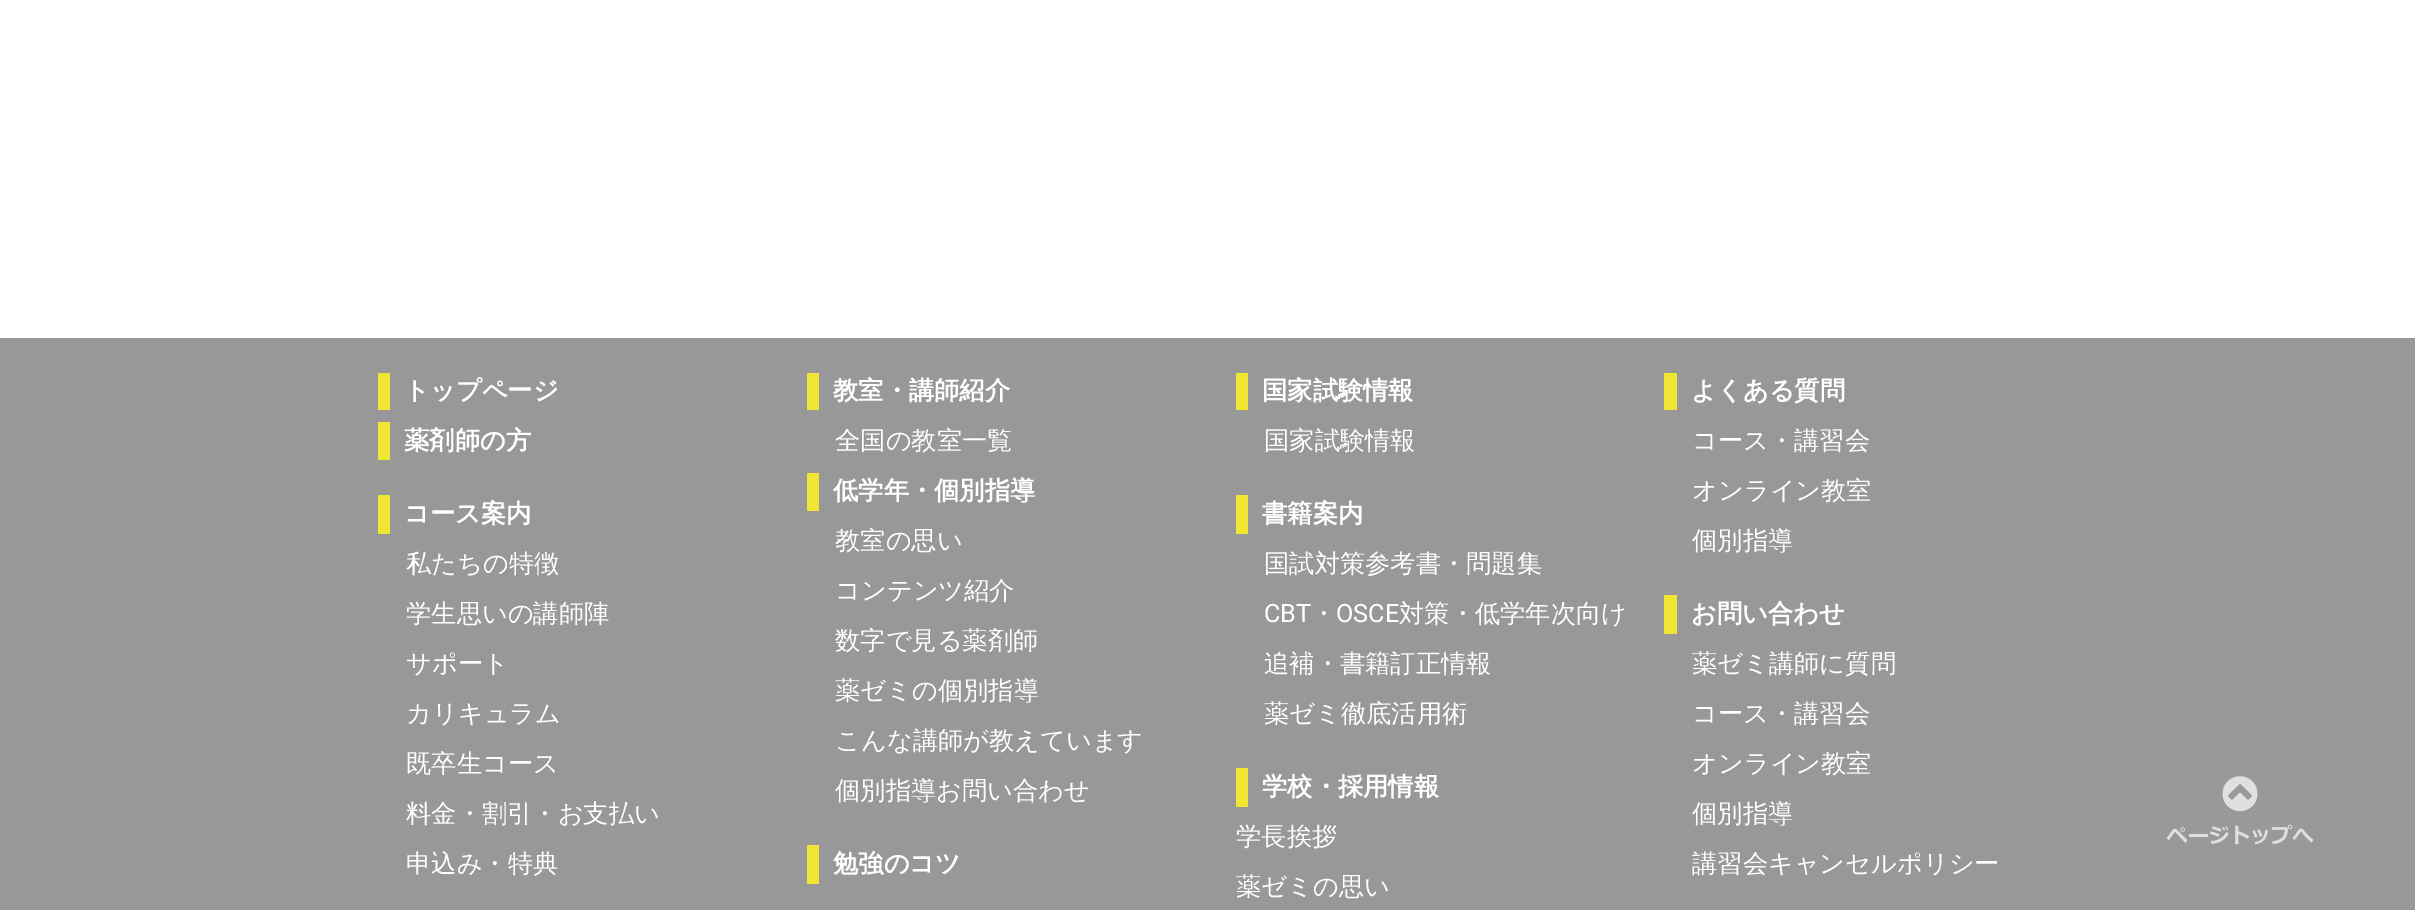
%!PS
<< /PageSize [2415 910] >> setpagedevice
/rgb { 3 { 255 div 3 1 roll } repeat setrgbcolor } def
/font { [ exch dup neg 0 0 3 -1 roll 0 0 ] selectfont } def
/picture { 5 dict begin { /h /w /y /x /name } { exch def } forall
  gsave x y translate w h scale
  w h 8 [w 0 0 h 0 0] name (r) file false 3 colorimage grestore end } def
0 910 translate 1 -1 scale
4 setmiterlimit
255 255 255 rgb
0 0 2415 910 rectfill
[
  [0 338 2415 572 152 152 152]
  [378 373 12 37 241 229 52]
  [378 422 12 38 241 229 52]
  [378 495 12 39 241 229 52]
  [807 373 12 37 241 229 52]
  [807 473 12 38 241 229 52]
  [807 845 12 39 241 229 52]
  [1236 373 12 37 241 229 52]
  [1236 495 12 39 241 229 52]
  [1236 768 12 39 241 229 52]
  [1664 373 13 37 241 229 52]
  [1664 595 13 39 241 229 52]
] { aload pop rgb rectfill } forall
(img/1.rgb) 2166 776 148 69 picture
/WenQuanYiZenHei-Bold 25.25 font
255 255 255 rgb
[
  [(トップページ) 404 399]
  [(薬剤師の方) 404 449]
  [(コース案内) 404 522]
] { aload pop moveto show } forall
/WenQuanYiZenHei-Medium 25.25 font
[
  [(私たちの特徴) 406 572]
  [(学生思いの講師陣) 406 622]
  [(サポート) 406 672]
  [(カリキュラム) 406 722]
  [(既卒生コース) 406 772]
  [(料金・割引・お支払い) 406 822]
  [(申込み・特典) 406 872]
] { aload pop moveto show } forall
/WenQuanYiZenHei-Bold 25.25 font
833 399 moveto (教室・講師紹介) show
/WenQuanYiZenHei-Medium 25.25 font
835 449 moveto (全国の教室一覧) show
/WenQuanYiZenHei-Bold 25.25 font
833 499 moveto (低学年・個別指導) show
/WenQuanYiZenHei-Medium 25.25 font
[
  [(教室の思い) 835 549]
  [(コンテンツ紹介) 835 599]
  [(数字で見る薬剤師) 835 649]
  [(薬ゼミの個別指導) 835 699]
  [(こんな講師が教えています) 835 749]
  [(個別指導お問い合わせ) 835 799]
] { aload pop moveto show } forall
/WenQuanYiZenHei-Bold 25.25 font
833 872 moveto (勉強のコツ) show
1262 399 moveto (国家試験情報) show
/WenQuanYiZenHei-Medium 25.25 font
1264 449 moveto (国家試験情報) show
/WenQuanYiZenHei-Bold 25.25 font
1262 522 moveto (書籍案内) show
/WenQuanYiZenHei-Medium 25.25 font
1264 572 moveto (国試対策参考書・問題集) show
/Roboto-Regular 25.25 font
1264 622 moveto (CBT) show
/WenQuanYiZenHei-Medium 25.25 font
1311 622 moveto (・) show
/Roboto-Regular 25.25 font
1336 622 moveto (OSCE) show
/WenQuanYiZenHei-Medium 25.25 font
[
  [(対策・低学年次向け) 1399 622]
  [(追補・書籍訂正情報) 1264 672]
  [(薬ゼミ徹底活用術) 1264 722]
] { aload pop moveto show } forall
/WenQuanYiZenHei-Bold 25.25 font
1262 795 moveto (学校・採用情報) show
/WenQuanYiZenHei-Medium 25.25 font
1236 845 moveto (学長挨拶) show
1236 895 moveto (薬ゼミの思い) show
/WenQuanYiZenHei-Bold 25.25 font
1691 399 moveto (よくある質問) show
/WenQuanYiZenHei-Medium 25.25 font
[
  [(コース・講習会) 1692 449]
  [(オンライン教室) 1692 499]
  [(個別指導) 1692 549]
] { aload pop moveto show } forall
/WenQuanYiZenHei-Bold 25.25 font
1691 622 moveto (お問い合わせ) show
/WenQuanYiZenHei-Medium 25.25 font
[
  [(薬ゼミ講師に質問) 1692 672]
  [(コース・講習会) 1692 722]
  [(オンライン教室) 1692 772]
  [(個別指導) 1692 822]
  [(講習会キャンセルポリシー) 1692 872]
] { aload pop moveto show } forall
showpage
